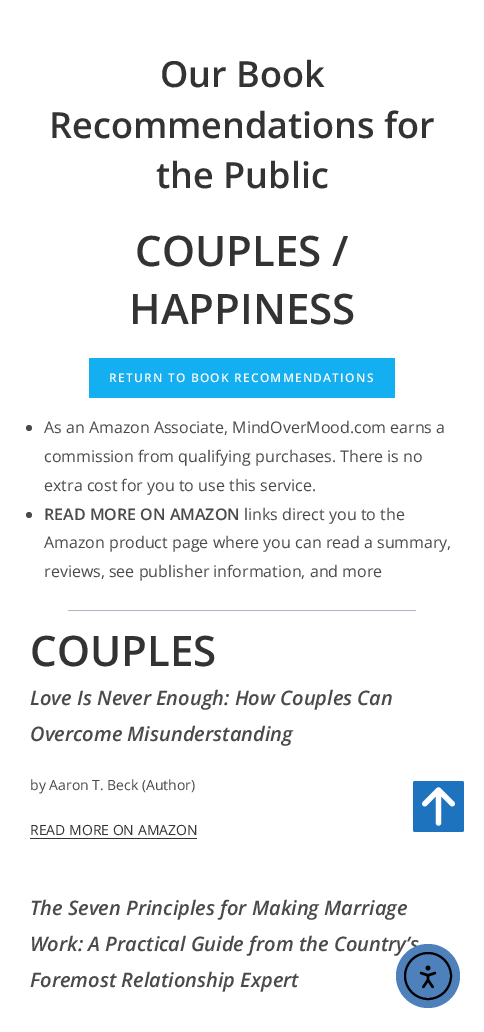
%!PS
<< /PageSize [484 1032] >> setpagedevice
/rgb { 3 { 255 div 3 1 roll } repeat setrgbcolor } def
/font { [ exch dup neg 0 0 3 -1 roll 0 0 ] selectfont } def
/circle { newpath 0 360 arc closepath } def
/roundrect { 5 dict begin { /r /h /w /y /x } { exch def } forall
  x r add y moveto x w add y 2 copy h add r arct x w add y h add x 1 index r arct
  x y h add x y r arct x y 2 copy exch w add exch r arct closepath end } def
/picture { 5 dict begin { /h /w /y /x /name } { exch def } forall
  gsave x y translate w h scale
  w h 8 [w 0 0 h 0 0] name (r) file false 3 colorimage grestore end } def
0 1032 translate 1 -1 scale
4 setmiterlimit
255 255 255 rgb
0 0 484 1032 rectfill
19 175 240 rgb
89 358 306 40 rectfill
74 74 74 rgb
29 428 3 circle fill
29 515 3 circle fill
171 184 195 rgb
68 610 348 1 rectfill
51 51 51 rgb
30 838 167 1 rectfill
30 115 190 rgb
413 781 51 51 2 roundrect fill
(img/1.rgb) 422 787 33 39 picture
/OpenSans-SemiBold 36 font
51 51 51 rgb
[
  [(Our Book) 160 87]
  [(Recommendations for) 49 138]
  [(the Public) 156 188]
] { aload pop moveto show } forall
/OpenSans-SemiBold 42 font
135 266 moveto (COUPLES /) show
129 324 moveto (HAPPINESS) show
/OpenSans-SemiBold 12 font
255 255 255 rgb
109 382 moveto 1.2 0 (RETURN TO BOOK RECOMMENDATIONS) ashow
/OpenSans-Regular 16 font
74 74 74 rgb
[
  [(As an Amazon Associate, MindOverMood.com earns a) 44 433]
  [(commission from qualifying purchases. There is no) 44 462]
  [(extra cost for you to use this service.) 44 491]
] { aload pop moveto show } forall
/OpenSans-SemiBold 16 font
44 520 moveto (READ MORE ON AMAZON) show
/OpenSans-Regular 16 font
[
  [(links direct you to the) 244 520]
  [(Amazon product page where you can read a summary,) 44 548]
  [(reviews, see publisher information, and more) 44 577]
] { aload pop moveto show } forall
/OpenSans-SemiBold 42 font
51 51 51 rgb
30 666 moveto (COUPLES) show
/OpenSans-SemiBoldItalic 20 font
74 74 74 rgb
30 705 moveto (Love Is Never Enough: How Couples Can) show
30 741 moveto (Overcome Misunderstanding) show
/OpenSans-Regular 14 font
30 790 moveto (by Aaron T. Beck \(Author\)) show
51 51 51 rgb
30 835 moveto (READ MORE ON AMAZON) show
/OpenSans-SemiBoldItalic 20 font
74 74 74 rgb
[
  [(The Seven Principles for Making Marriage) 30 915]
  [(Work: A Practical Guide from the Country’s) 30 951]
  [(Foremost Relationship Expert) 30 987]
] { aload pop moveto show } forall
78 128 187 rgb
428 976 32 circle fill
0 0 0 rgb
2 setlinewidth
428 976 23 circle stroke
(img/2.rgb) 419 965 18 24 picture
showpage
